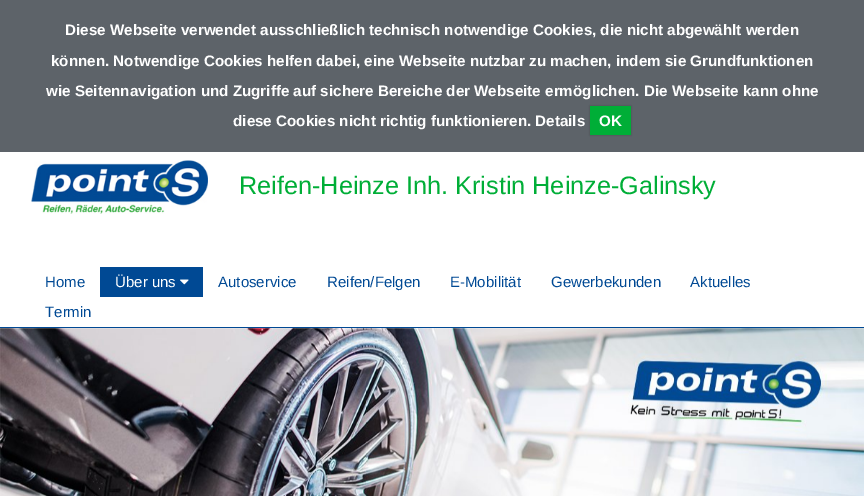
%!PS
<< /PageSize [864 496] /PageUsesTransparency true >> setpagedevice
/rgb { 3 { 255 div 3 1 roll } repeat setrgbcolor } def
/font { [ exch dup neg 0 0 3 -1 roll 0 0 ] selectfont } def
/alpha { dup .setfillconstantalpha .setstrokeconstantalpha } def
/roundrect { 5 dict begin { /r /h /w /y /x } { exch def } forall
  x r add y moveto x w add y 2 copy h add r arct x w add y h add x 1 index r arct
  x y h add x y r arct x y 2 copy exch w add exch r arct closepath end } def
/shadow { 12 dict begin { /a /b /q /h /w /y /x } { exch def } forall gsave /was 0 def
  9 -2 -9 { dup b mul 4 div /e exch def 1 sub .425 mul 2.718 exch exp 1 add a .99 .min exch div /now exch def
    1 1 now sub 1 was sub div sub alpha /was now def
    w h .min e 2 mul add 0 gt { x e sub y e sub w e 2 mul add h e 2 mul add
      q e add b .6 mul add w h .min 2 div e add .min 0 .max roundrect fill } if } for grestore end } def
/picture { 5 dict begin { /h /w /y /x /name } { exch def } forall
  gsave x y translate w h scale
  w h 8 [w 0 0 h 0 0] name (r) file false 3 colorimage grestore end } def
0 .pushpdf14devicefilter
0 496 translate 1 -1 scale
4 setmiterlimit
255 255 255 rgb
0 0 864 496 rectfill
93 99 105 rgb
0 0 864 152 rectfill
0 0 0 rgb
590 106 41 29 0 1 0.25 shadow
0 174 55 rgb
590 106 41 29 rectfill
0 73 148 rgb
0 327 864 1 rectfill
(img/1.rgb) 31 160 177 54 picture
100 267 103 30 rectfill
(img/2.rgb) 180 279 9 6 picture
(img/3.rgb) 0 328 864 168 picture
/LiberationSans-Bold 15.2 font
255 255 255 rgb
[
  [(Diese Webseite verwendet ausschließlich technisch notwendige Cookies, die nicht abgewählt werden) 65 35]
  [(können. Notwendige Cookies helfen dabei, eine Webseite nutzbar zu machen, indem sie Grundfunktionen) 51 66]
  [(wie Seitennavigation und Zugriffe auf sichere Bereiche der Webseite ermöglichen. Die Webseite kann ohne) 46 96]
  [(diese Cookies nicht richtig funktionieren. Details) 233 126]
  [(OK) 599 126]
] { aload pop moveto show } forall
/LiberationSans-Regular 25.25 font
0 174 55 rgb
239 194 moveto (Reifen-Heinze Inh. Kristin Heinze-Galinsky) show
/LiberationSans-Regular 15 font
0 73 148 rgb
45 287 moveto (Home) show
255 255 255 rgb
115 287 moveto (Über uns) show
0 73 148 rgb
[
  [(Autoservice) 218 287]
  [(Reifen/Felgen) 327 287]
  [(E-Mobilität) 450 287]
  [(Gewerbekunden) 551 287]
  [(Aktuelles) 690 287]
  [(Termin) 45 317]
] { aload pop moveto show } forall
.poppdf14devicefilter showpage
